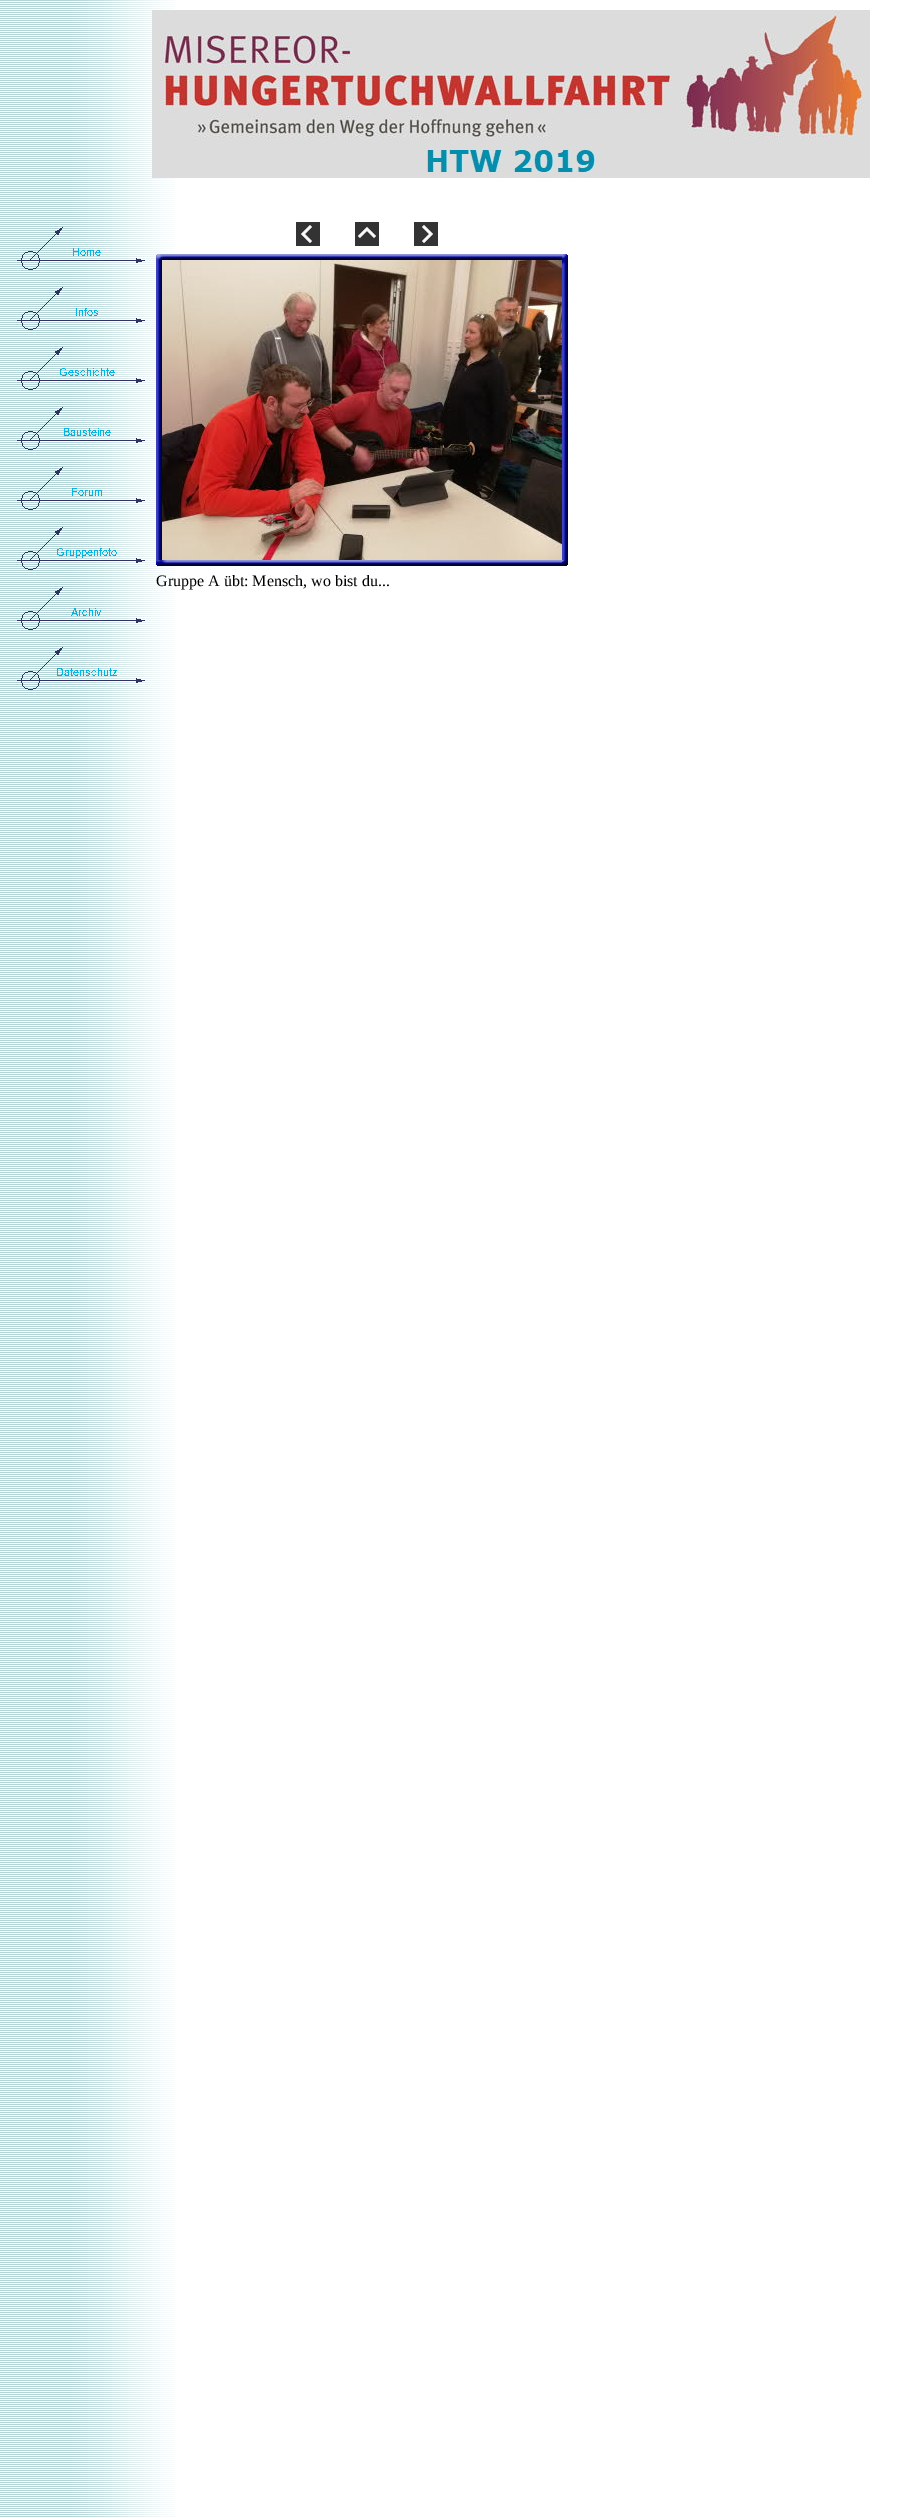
%!PS
<< /PageSize [911 2518] >> setpagedevice
/rgb { 3 { 255 div 3 1 roll } repeat setrgbcolor } def
/font { [ exch dup neg 0 0 3 -1 roll 0 0 ] selectfont } def
/picture { 5 dict begin { /h /w /y /x /name } { exch def } forall
  gsave x y translate w h scale
  w h 8 [w 0 0 h 0 0] name (r) file false 3 colorimage grestore end } def
0 2518 translate 1 -1 scale
4 setmiterlimit
255 255 255 rgb
0 0 911 2518 rectfill
(img/1.rgb) 0 0 175 2517 picture
(img/2.rgb) 152 10 718 168 picture
(img/3.rgb) 17 227 128 43 picture
(img/4.rgb) 17 287 128 43 picture
(img/5.rgb) 17 347 128 43 picture
(img/6.rgb) 17 407 128 43 picture
(img/7.rgb) 17 467 128 43 picture
(img/8.rgb) 17 527 128 43 picture
(img/9.rgb) 17 587 128 43 picture
(img/10.rgb) 17 647 128 43 picture
(img/11.rgb) 296 222 24 24 picture
(img/12.rgb) 355 222 24 24 picture
(img/13.rgb) 414 222 24 24 picture
(img/14.rgb) 156 254 6 6 picture
(img/15.rgb) 162 254 400 6 picture
(img/16.rgb) 562 254 6 6 picture
(img/17.rgb) 156 260 6 300 picture
(img/18.rgb) 162 260 400 300 picture
(img/19.rgb) 562 260 6 300 picture
(img/20.rgb) 156 560 6 6 picture
(img/21.rgb) 162 560 400 6 picture
(img/22.rgb) 562 560 6 6 picture
/LiberationSerif-Regular 16 font
0 0 0 rgb
156 586 moveto (Gruppe A übt: Mensch, wo bist du...) show
showpage
